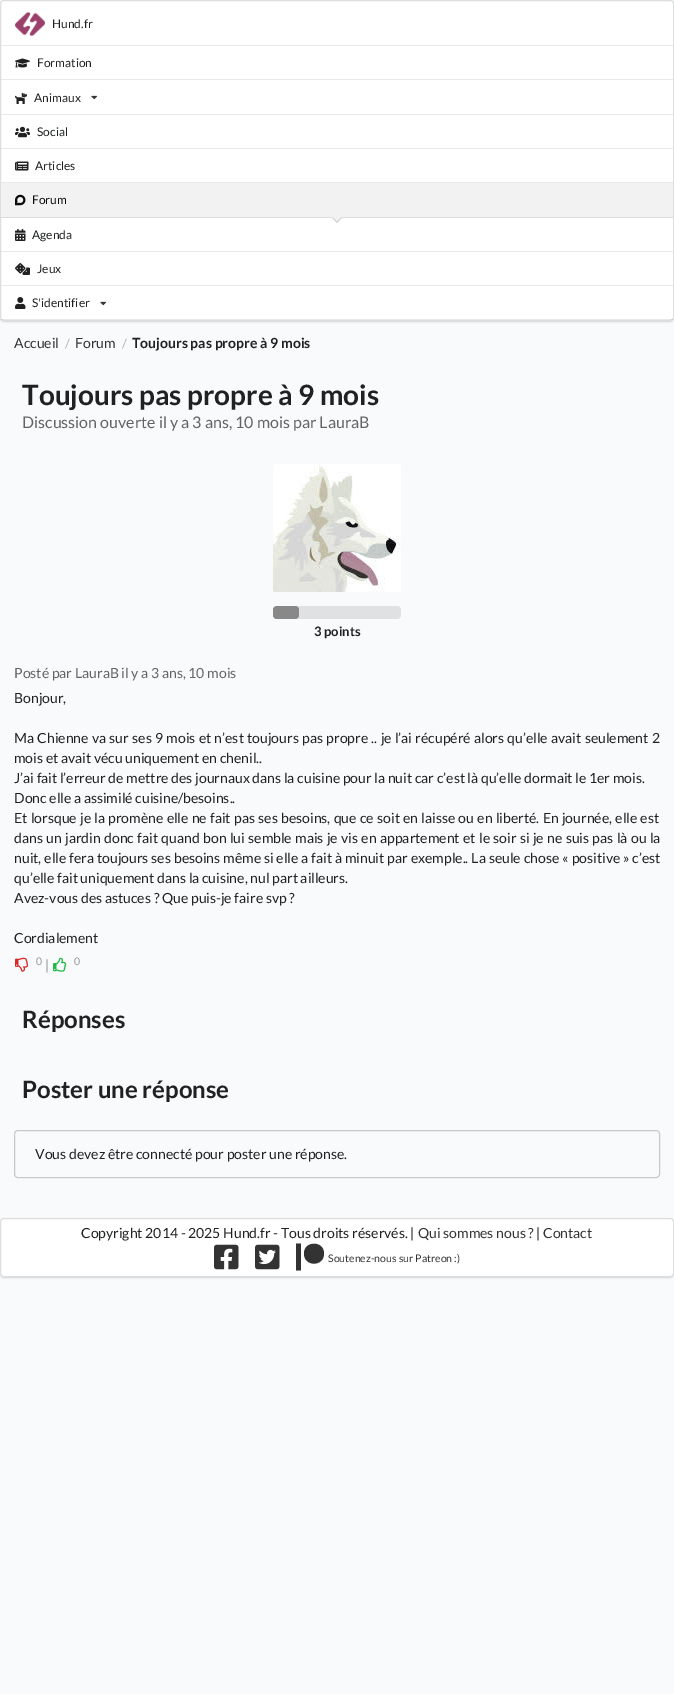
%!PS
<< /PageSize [674 1694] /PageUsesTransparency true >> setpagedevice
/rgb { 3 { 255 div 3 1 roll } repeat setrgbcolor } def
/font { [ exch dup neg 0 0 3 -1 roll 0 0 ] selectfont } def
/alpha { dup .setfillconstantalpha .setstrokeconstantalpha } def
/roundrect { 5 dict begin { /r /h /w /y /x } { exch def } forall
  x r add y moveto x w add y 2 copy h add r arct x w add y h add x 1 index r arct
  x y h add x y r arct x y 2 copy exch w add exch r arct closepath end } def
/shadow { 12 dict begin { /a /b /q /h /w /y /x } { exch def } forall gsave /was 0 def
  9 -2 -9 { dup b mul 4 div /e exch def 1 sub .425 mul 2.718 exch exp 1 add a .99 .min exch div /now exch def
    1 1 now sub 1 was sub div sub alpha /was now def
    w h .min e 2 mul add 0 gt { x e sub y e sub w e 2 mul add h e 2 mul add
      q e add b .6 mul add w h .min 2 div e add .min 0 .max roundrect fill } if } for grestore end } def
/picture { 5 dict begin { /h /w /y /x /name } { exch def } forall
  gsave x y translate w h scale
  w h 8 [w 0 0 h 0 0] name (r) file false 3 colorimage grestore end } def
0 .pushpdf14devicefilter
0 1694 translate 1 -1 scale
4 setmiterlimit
249 250 251 rgb
0 0 674 1694 rectfill
34 36 38 rgb
0 1 674 321 4 1 0.15 shadow
255 255 255 rgb
0 0 674 321 4 roundrect fill
0.15 alpha
34 36 38 rgb
0.5 0.5 673 320 3.5 roundrect stroke
1 alpha
(img/1.rgb) 15 11 30 26 picture
233 233 233 rgb
1 45 672 1 rectfill
(img/2.rgb) 15 58 15 10 picture
1 79 672 1 rectfill
(img/3.rgb) 15 92 12 12 picture
(img/4.rgb) 91 95 7 5 picture
1 114 672 1 rectfill
(img/5.rgb) 15 126 15 12 picture
1 148 672 1 rectfill
(img/6.rgb) 15 161 14 10 picture
1 182 672 1 rectfill
242 242 242 rgb
1 183 672 34 rectfill
(img/7.rgb) 15 194 11 12 picture
221 221 222 rgb
1 217 672 1 rectfill
242 242 242 rgb
337 213 moveto 342 218 lineto 337 223 lineto 332 218 lineto closepath fill
212 212 213 rgb
341 217.5 moveto 342 218 lineto 337 223 lineto 336.5 222 lineto closepath fill
333 217.5 moveto 337.5 222 lineto 337 223 lineto 332 218 lineto closepath fill
(img/8.rgb) 15 229 11 12 picture
233 233 233 rgb
1 251 672 1 rectfill
(img/9.rgb) 15 263 15 12 picture
1 285 672 1 rectfill
(img/10.rgb) 15 297 11 12 picture
(img/4.rgb) 100 301 7 5 picture
0.1 alpha
34 36 38 rgb
1 319 672 1 rectfill
1 alpha
(img/11.rgb) 273 464 128 128 picture
224 225 226 rgb
273 606 128 13 4 roundrect fill
136 136 136 rgb
273 606 26 13 4 roundrect fill
(img/12.rgb) 15 957 14 15 picture
(img/13.rgb) 53 957 14 15 picture
201 201 203 rgb
14.5 1130.5 645 47 3.5 roundrect stroke
34 36 38 rgb
0 1219 674 59 4 1 0.15 shadow
255 255 255 rgb
0 1218 674 59 4 roundrect fill
0.15 alpha
34 36 38 rgb
0.5 1218.5 673 58 3.5 roundrect stroke
1 alpha
(img/14.rgb) 214 1244 25 26 picture
(img/15.rgb) 255 1244 25 26 picture
51 51 51 rgb
324 1253.5 moveto 324 1267 304 1267 304 1253.5 curveto 304 1240.5 324 1240.5 324 1253.5 curveto closepath 296 1270.5 moveto 301 1270.5 lineto 301 1243.5 lineto 296 1243.5 lineto closepath fill
/Lato-Regular 12 font
32 33 33 rgb
[
  [(Hund.fr) 52 28]
  [(Formation) 37 67]
  [(Animaux) 34 102]
  [(Social) 37 136]
  [(Articles) 35 170]
] { aload pop moveto show } forall
12 12 12 rgb
32 204 moveto (Forum) show
32 33 33 rgb
[
  [(Agenda) 32 239]
  [(Jeux) 37 273]
  [(S'identifier) 32 307]
] { aload pop moveto show } forall
/Lato-Regular 14 font
51 51 51 rgb
14 348 moveto (Accueil) show
/Lato-Regular 13 font
179 180 181 rgb
65 348 moveto (/) show
/Lato-Regular 14 font
51 51 51 rgb
75 348 moveto (Forum) show
/Lato-Regular 13 font
179 180 181 rgb
122 348 moveto (/) show
/Lato-Bold 14 font
32 33 33 rgb
132 348 moveto (Toujours pas propre à 9 mois) show
/Lato-Bold 28 font
22 405 moveto (Toujours pas propre à 9 mois) show
/Lato-Regular 16 font
100 100 100 rgb
22 428 moveto (Discussion ouverte il y a 3 ans, 10 mois par LauraB) show
/Lato-Bold 13 font
32 33 33 rgb
314 636 moveto (3 points) show
/Lato-Regular 14 font
100 100 100 rgb
14 678 moveto (Posté par LauraB il y a 3 ans, 10 mois) show
32 33 33 rgb
14 703 moveto (Bonjour,) show
14 743 moveto 0.6 0 32 (Ma Chienne va sur ses 9 mois et n’est toujours pas propre .. je l’ai récupéré alors qu’elle avait seulement 2) widthshow
[
  [(mois et avait vécu uniquement en chenil..) 14 763]
  [(J’ai fait l’erreur de mettre des journaux dans la cuisine pour la nuit car c’est là qu’elle dormait le 1er mois.) 14 783]
  [(Donc elle a assimilé cuisine/besoins..) 14 803]
] { aload pop moveto show } forall
14 823 moveto 0.6 0 32 (Et lorsque je la promène elle ne fait pas ses besoins, que ce soit en laisse ou en liberté. En journée, elle est) widthshow
14 843 moveto 0.7 0 32 (dans un jardin donc fait quand bon lui semble mais je vis en appartement et le soir si je ne suis pas là ou la) widthshow
14 863 moveto 0.25 0 32 (nuit, elle fera toujours ses besoins même si elle a fait à minuit par exemple.. La seule chose « positive » c’est) widthshow
[
  [(qu’elle fait uniquement dans la cuisine, nul part ailleurs.) 14 883]
  [(Avez-vous des astuces ? Que puis-je faire svp ?) 14 903]
  [(Cordialement) 14 943]
] { aload pop moveto show } forall
/Lato-Regular 10.5 font
149 150 151 rgb
36 965 moveto (0) show
/Lato-Regular 14 font
45 970 moveto (|) show
/Lato-Regular 10.5 font
74 965 moveto (0) show
/Lato-Bold 24 font
32 33 33 rgb
22 1028 moveto (Réponses) show
22 1098 moveto (Poster une réponse) show
/Lato-Regular 14 font
35 1159 moveto (Vous devez être connecté pour poster une réponse.) show
81 1238 moveto (Copyright 2014 - 2025 Hund.fr - Tous droits réservés. |) show
51 51 51 rgb
418 1238 moveto (Qui sommes nous ?) show
32 33 33 rgb
536 1238 moveto (|) show
51 51 51 rgb
543 1238 moveto (Contact) show
/Lato-Regular 10.5 font
328 1262 moveto (Soutenez-nous sur Patreon :\)) show
.poppdf14devicefilter showpage
